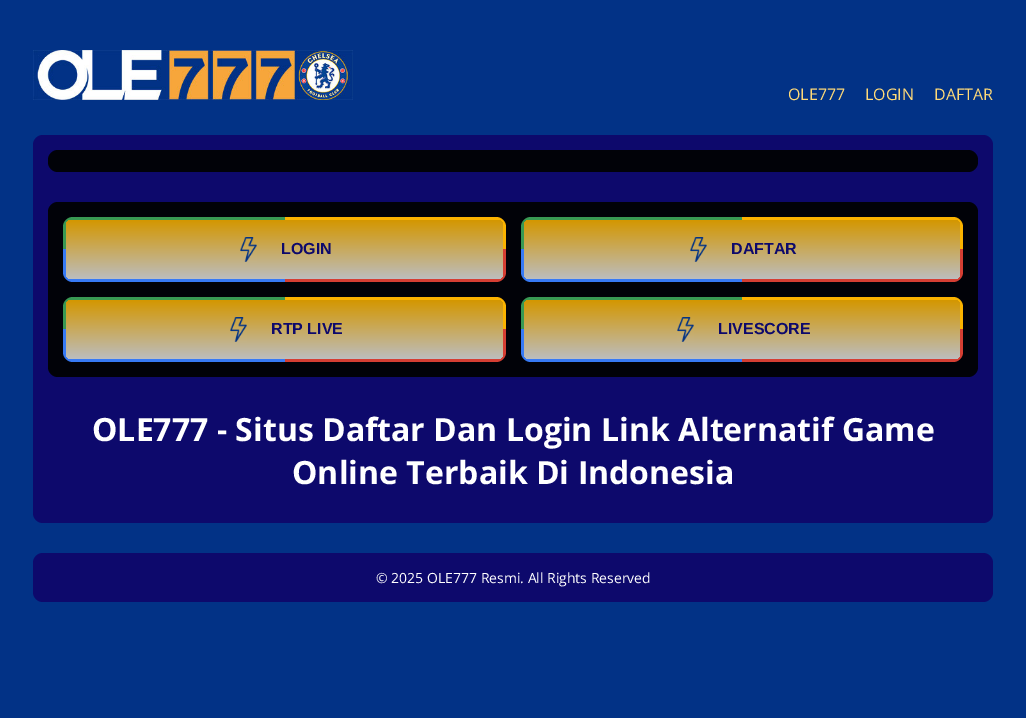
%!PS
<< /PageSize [1026 718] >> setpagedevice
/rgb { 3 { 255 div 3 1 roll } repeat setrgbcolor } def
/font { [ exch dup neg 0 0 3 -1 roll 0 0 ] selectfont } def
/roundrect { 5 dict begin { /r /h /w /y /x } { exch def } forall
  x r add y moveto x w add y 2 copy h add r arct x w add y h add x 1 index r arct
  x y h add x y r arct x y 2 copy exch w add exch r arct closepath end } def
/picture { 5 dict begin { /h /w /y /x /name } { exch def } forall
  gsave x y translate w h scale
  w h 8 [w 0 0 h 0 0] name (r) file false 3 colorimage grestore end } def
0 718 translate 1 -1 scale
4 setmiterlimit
2 50 134 rgb
0 0 1026 718 rectfill
(img/1.rgb) 33 50 320 50 picture
13 9 108 rgb
33 135 960 388 10 roundrect fill
1 2 8 rgb
48 150 930 22 10 roundrect fill
48 202 930 175 10 roundrect fill
55 122 245 rgb
63 249 moveto 285 249 lineto 285 282 lineto 73 282 lineto 67.5 282 63 277.5 63 272 curveto closepath fill
213 62 51 rgb
285 249 moveto 506 249 lineto 506 272 lineto 506 277.5 501.5 282 496 282 curveto 285 282 lineto closepath fill
251 179 0 rgb
285 217 moveto 496 217 lineto 501.5 217 506 221.5 506 227 curveto 506 249 lineto 285 249 lineto closepath fill
57 153 83 rgb
73 217 moveto 285 217 lineto 285 249 lineto 63 249 lineto 63 227 lineto 63 221.5 67.5 217 73 217 curveto closepath fill
gsave 66 220 437 59 5 roundrect clip newpath
<< /ShadingType 2 /ColorSpace /DeviceRGB /Coords [285 220 285 279] /Extend [true true] /Function << /FunctionType 2 /Domain [0 1] /C0 [0.831 0.592 0] /C1 [0.737 0.741 0.745] /N 1 >> >> shfill grestore
(img/2.rgb) 240 237 17 25 picture
55 122 245 rgb
521 249 moveto 742 249 lineto 742 282 lineto 531 282 lineto 525.5 282 521 277.5 521 272 curveto closepath fill
213 62 51 rgb
742 249 moveto 963 249 lineto 963 272 lineto 963 277.5 958.5 282 953 282 curveto 742 282 lineto closepath fill
251 179 0 rgb
742 217 moveto 953 217 lineto 958.5 217 963 221.5 963 227 curveto 963 249 lineto 742 249 lineto closepath fill
57 153 83 rgb
531 217 moveto 742 217 lineto 742 249 lineto 521 249 lineto 521 227 lineto 521 221.5 525.5 217 531 217 curveto closepath fill
gsave 524 220 436 59 5 roundrect clip newpath
<< /ShadingType 2 /ColorSpace /DeviceRGB /Coords [742 220 742 279] /Extend [true true] /Function << /FunctionType 2 /Domain [0 1] /C0 [0.831 0.592 0] /C1 [0.737 0.741 0.745] /N 1 >> >> shfill grestore
(img/3.rgb) 690 237 17 25 picture
55 122 245 rgb
63 329 moveto 285 329 lineto 285 362 lineto 73 362 lineto 67.5 362 63 357.5 63 352 curveto closepath fill
213 62 51 rgb
285 329 moveto 506 329 lineto 506 352 lineto 506 357.5 501.5 362 496 362 curveto 285 362 lineto closepath fill
251 179 0 rgb
285 297 moveto 496 297 lineto 501.5 297 506 301.5 506 307 curveto 506 329 lineto 285 329 lineto closepath fill
57 153 83 rgb
73 297 moveto 285 297 lineto 285 329 lineto 63 329 lineto 63 307 lineto 63 301.5 67.5 297 73 297 curveto closepath fill
gsave 66 300 437 59 5 roundrect clip newpath
<< /ShadingType 2 /ColorSpace /DeviceRGB /Coords [285 300 285 359] /Extend [true true] /Function << /FunctionType 2 /Domain [0 1] /C0 [0.831 0.592 0] /C1 [0.737 0.741 0.745] /N 1 >> >> shfill grestore
(img/3.rgb) 230 317 17 25 picture
55 122 245 rgb
521 329 moveto 742 329 lineto 742 362 lineto 531 362 lineto 525.5 362 521 357.5 521 352 curveto closepath fill
213 62 51 rgb
742 329 moveto 963 329 lineto 963 352 lineto 963 357.5 958.5 362 953 362 curveto 742 362 lineto closepath fill
251 179 0 rgb
742 297 moveto 953 297 lineto 958.5 297 963 301.5 963 307 curveto 963 329 lineto 742 329 lineto closepath fill
57 153 83 rgb
531 297 moveto 742 297 lineto 742 329 lineto 521 329 lineto 521 307 lineto 521 301.5 525.5 297 531 297 curveto closepath fill
gsave 524 300 436 59 5 roundrect clip newpath
<< /ShadingType 2 /ColorSpace /DeviceRGB /Coords [742 300 742 359] /Extend [true true] /Function << /FunctionType 2 /Domain [0 1] /C0 [0.831 0.592 0] /C1 [0.737 0.741 0.745] /N 1 >> >> shfill grestore
(img/3.rgb) 677 317 17 25 picture
13 9 108 rgb
33 553 960 49 10 roundrect fill
/OpenSans-Regular 16 font
255 218 120 rgb
[
  [(OLE777) 788 100]
  [(LOGIN) 865 100]
  [(DAFTAR) 934 100]
] { aload pop moveto show } forall
/LiberationSans-Bold 16 font
13 9 108 rgb
[
  [(LOGIN) 281 254]
  [(DAFTAR) 731 254]
  [(RTP LIVE) 271 334]
  [(LIVESCORE) 718 334]
] { aload pop moveto show } forall
/OpenSans-Bold 32 font
255 255 255 rgb
92 441 moveto (OLE777 - Situs Daftar Dan Login Link Alternatif Game) show
292 484 moveto (Online Terbaik Di Indonesia) show
/OpenSans-Regular 14 font
376 583 moveto (© 2025 OLE777 Resmi. All Rights Reserved) show
showpage
